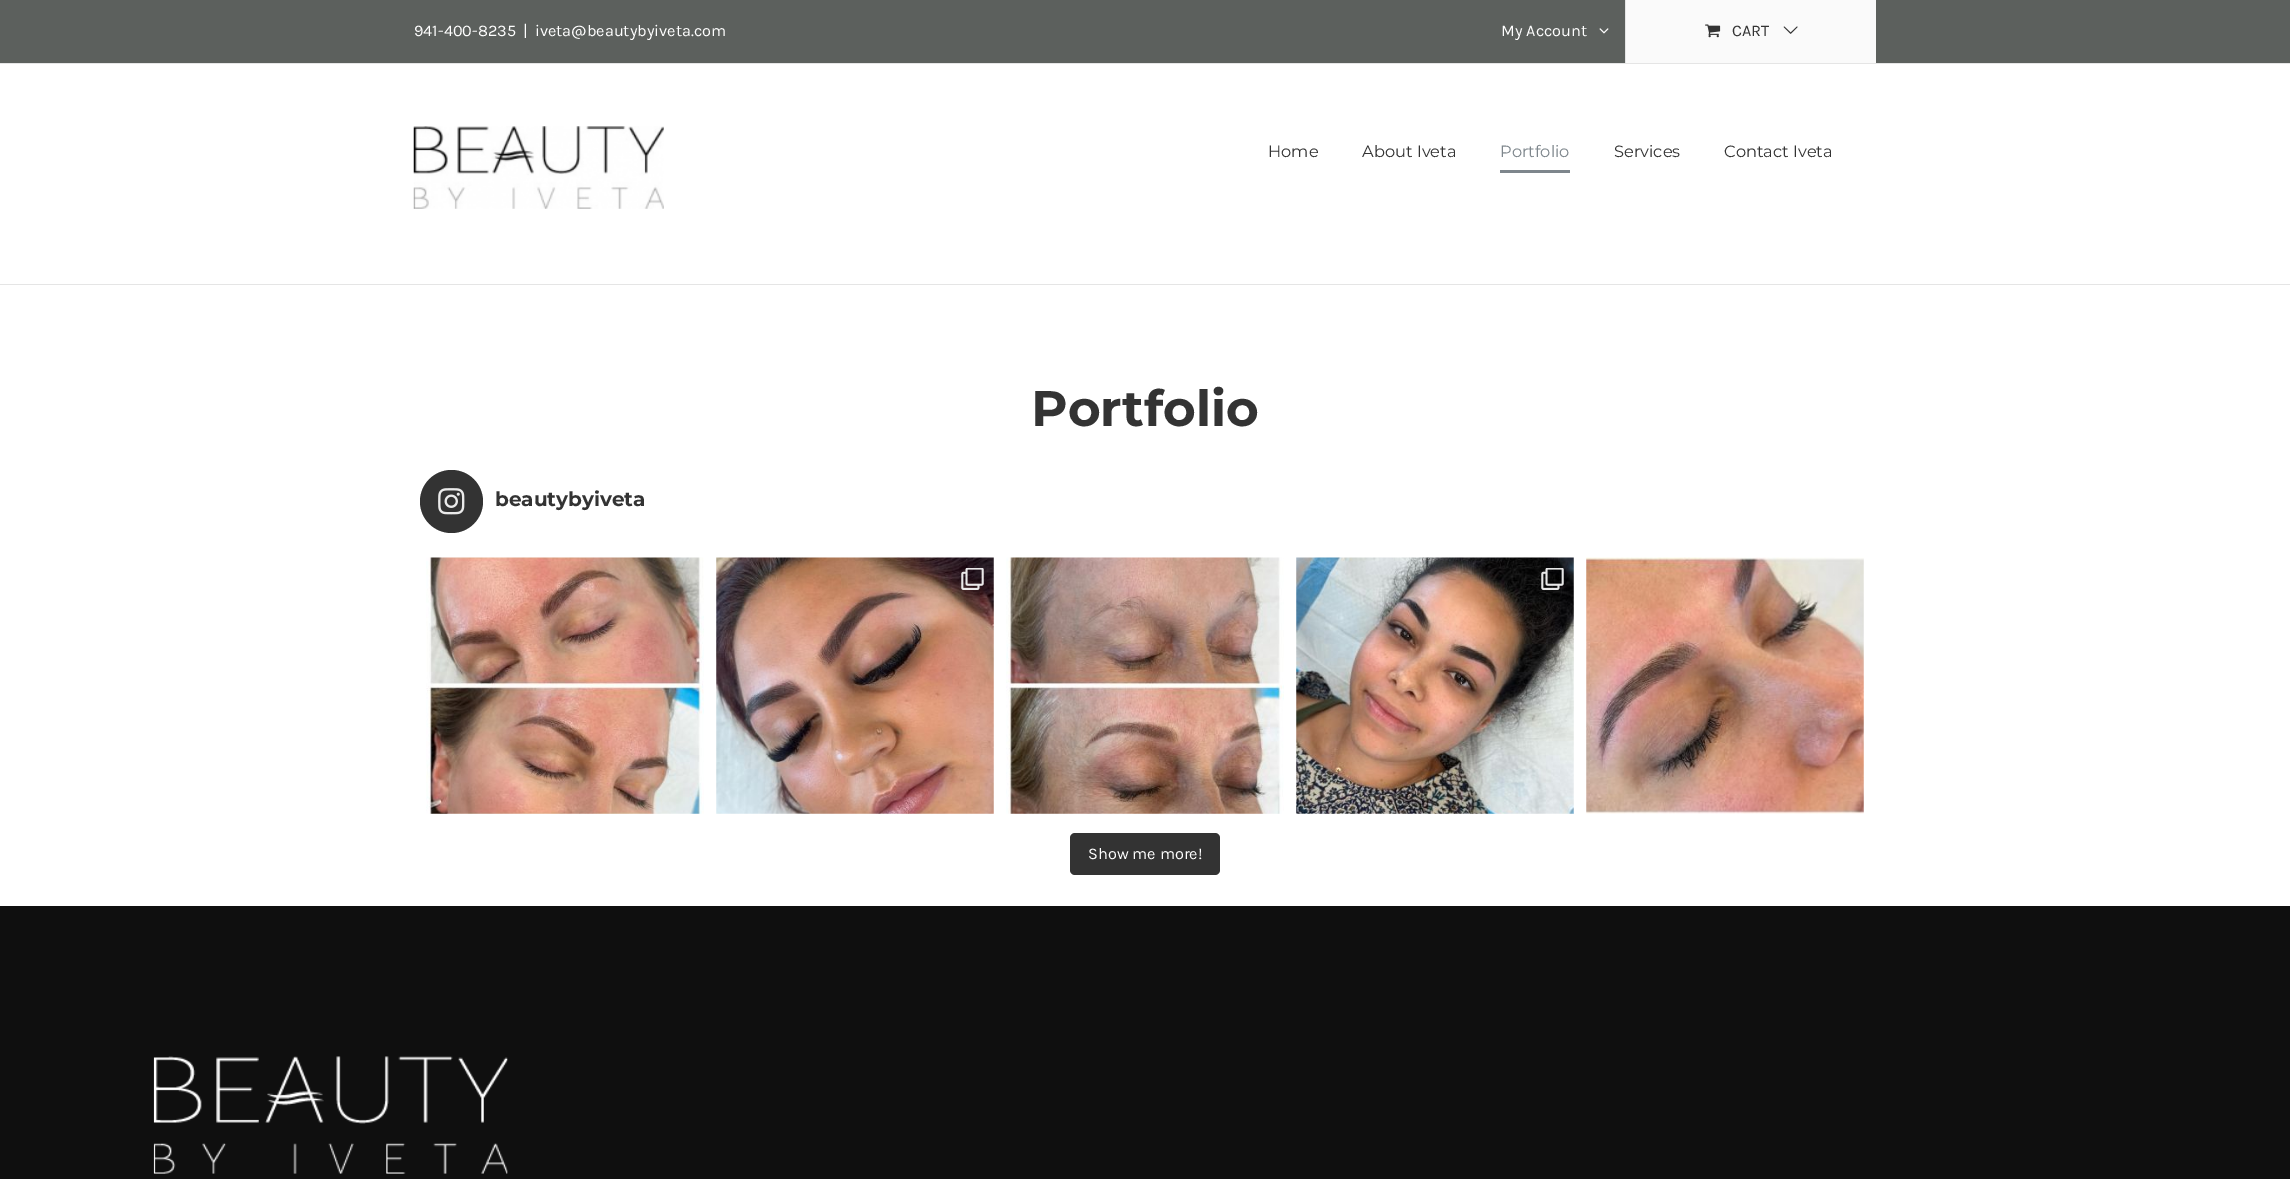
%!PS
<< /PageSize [2290 1179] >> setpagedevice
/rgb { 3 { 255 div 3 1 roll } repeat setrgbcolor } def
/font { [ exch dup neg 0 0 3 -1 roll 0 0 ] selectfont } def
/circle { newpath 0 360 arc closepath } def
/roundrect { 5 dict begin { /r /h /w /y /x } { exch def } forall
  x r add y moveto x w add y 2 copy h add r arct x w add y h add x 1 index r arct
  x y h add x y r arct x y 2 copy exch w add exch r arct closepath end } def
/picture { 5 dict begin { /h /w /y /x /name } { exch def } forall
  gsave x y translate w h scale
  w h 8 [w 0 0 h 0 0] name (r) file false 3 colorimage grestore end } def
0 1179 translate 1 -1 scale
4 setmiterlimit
255 255 255 rgb
0 0 2290 1179 rectfill
92 96 93 rgb
0 0 2290 63 rectfill
229 229 229 rgb
0 63 2290 1 rectfill
(img/1.rgb) 1599 28 10 6 picture
1625 0 1 63 rectfill
250 250 250 rgb
1626 0 250 63 rectfill
(img/2.rgb) 1705 24 16 14 picture
(img/3.rgb) 1783 26 15 8 picture
229 229 229 rgb
0 284 2290 1 rectfill
(img/4.rgb) 413 126 251 83 picture
126 134 140 rgb
1500 170 70 3 rectfill
51 51 51 rgb
451.5 501.5 31.5 circle fill
(img/5.rgb) 438 488 27 27 picture
(img/6.rgb) 426 557 278 257 picture
(img/7.rgb) 716 557 278 257 picture
(img/8.rgb) 961 568 23 22 picture
(img/9.rgb) 1006 557 278 257 picture
(img/10.rgb) 1296 557 278 257 picture
(img/11.rgb) 1541 568 23 22 picture
(img/12.rgb) 1586 557 278 257 picture
1070 833 150 42 5 roundrect fill
15 15 15 rgb
0 906 2290 273 rectfill
(img/13.rgb) 153 1056 355 118 picture
/Karla-Regular 16.25 font
255 255 255 rgb
[
  [(941-400-8235) 414 36]
  [(|) 523 36]
  [(iveta@beautybyiveta.com) 535 36]
  [(My Account) 1501 36]
] { aload pop moveto show } forall
51 51 51 rgb
1732 36 moveto (CART) show
/Montserrat-Regular 16.25 font
1268 157 moveto (Home) show
1362 157 moveto (About Iveta) show
126 134 140 rgb
1500 157 moveto (Portfolio) show
51 51 51 rgb
1614 157 moveto (Services) show
1724 157 moveto (Contact Iveta) show
/Montserrat-Bold 50 font
1031 426 moveto (Portfolio) show
/Montserrat-Bold 20 font
495 506 moveto (beautybyiveta) show
/Karla-Regular 16.25 font
255 255 255 rgb
1088 859 moveto (Show me more!) show
showpage
